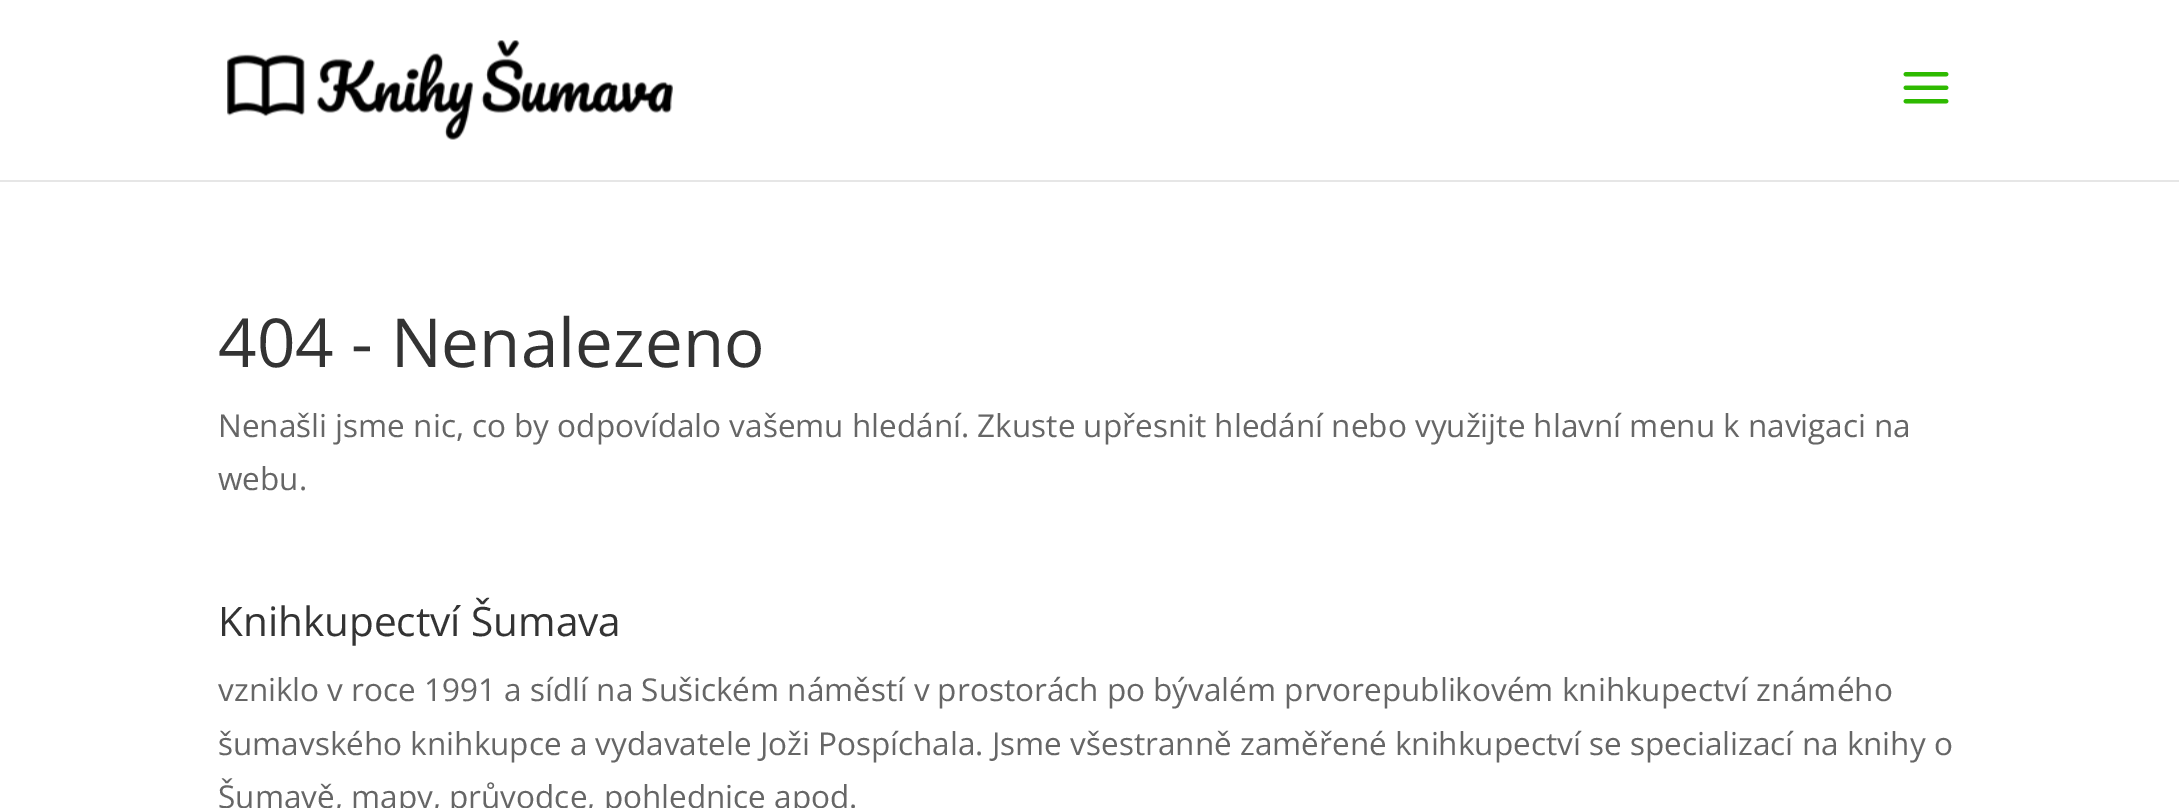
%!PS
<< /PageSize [2179 808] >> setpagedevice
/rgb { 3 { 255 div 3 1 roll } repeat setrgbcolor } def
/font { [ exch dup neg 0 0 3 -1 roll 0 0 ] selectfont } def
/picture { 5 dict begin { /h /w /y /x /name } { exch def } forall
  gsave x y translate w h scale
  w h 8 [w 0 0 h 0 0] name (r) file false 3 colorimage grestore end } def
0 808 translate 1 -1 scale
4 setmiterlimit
255 255 255 rgb
0 0 2179 808 rectfill
230 230 230 rgb
0 180 2179 2 rectfill
(img/1.rgb) 227 40 446 100 picture
(img/2.rgb) 1903 72 46 32 picture
/OpenSans-Regular 67.5 font
51 51 51 rgb
218 367 moveto (404 - Nenalezeno) show
/OpenSans-Regular 31.5 font
102 102 102 rgb
218 437 moveto (Nenašli jsme nic, co by odpovídalo vašemu hledání. Zkuste upřesnit hledání nebo využijte hlavní menu k navigaci na) show
218 490 moveto (webu.) show
/OpenSans-Regular 40.5 font
51 51 51 rgb
218 636 moveto (Knihkupectví Šumava) show
/OpenSans-Regular 31.5 font
102 102 102 rgb
[
  [(vzniklo v roce 1991 a sídlí na Sušickém náměstí v prostorách po bývalém prvorepublikovém knihkupectví známého) 218 701]
  [(šumavského knihkupce a vydavatele Joži Pospíchala. Jsme všestranně zaměřené knihkupectví se specializací na knihy o) 218 755]
  [(Šumavě, mapy, průvodce, pohlednice apod.) 218 808]
] { aload pop moveto show } forall
showpage
